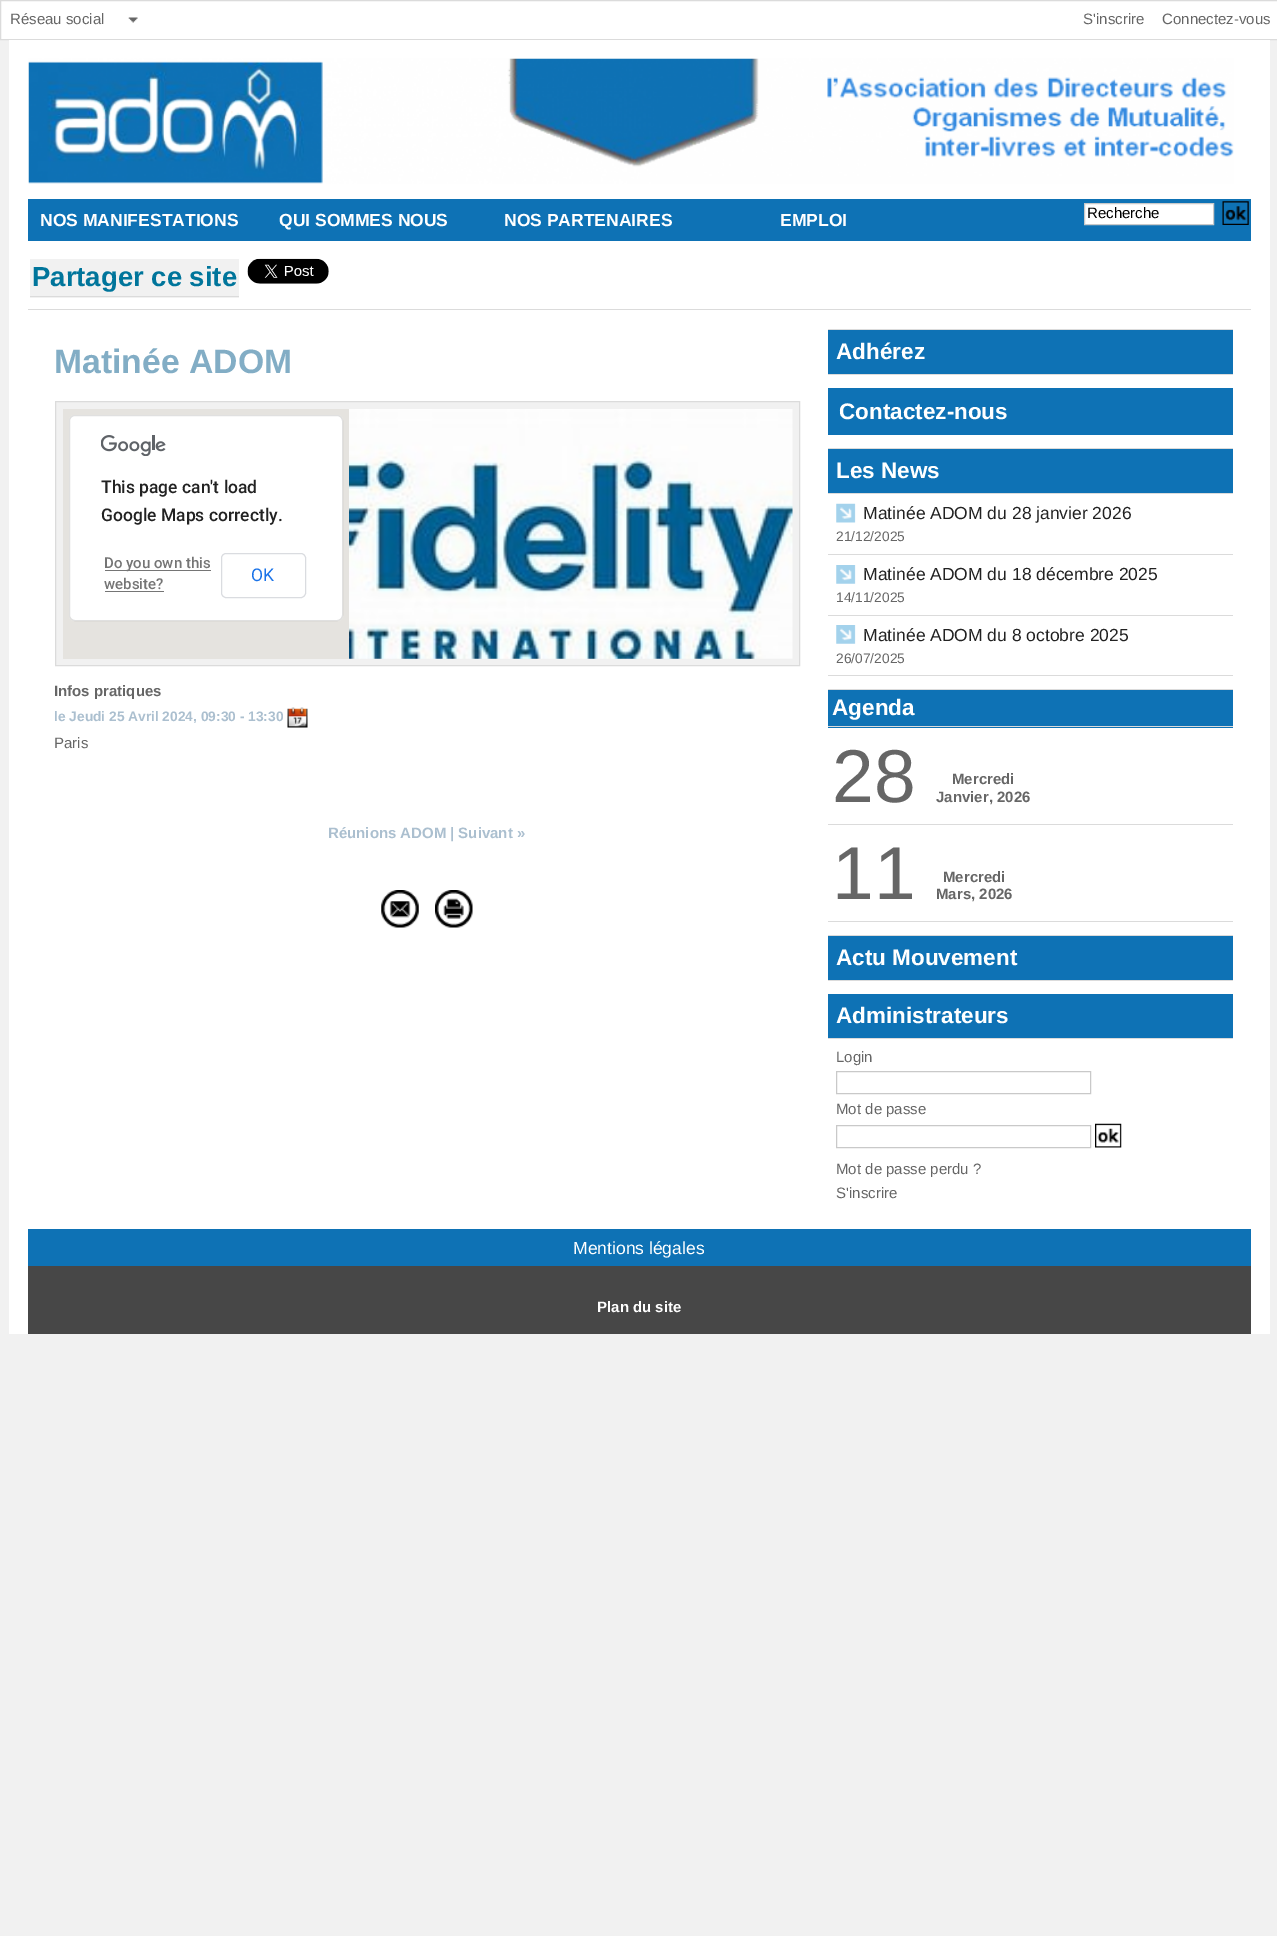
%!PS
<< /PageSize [1277 1936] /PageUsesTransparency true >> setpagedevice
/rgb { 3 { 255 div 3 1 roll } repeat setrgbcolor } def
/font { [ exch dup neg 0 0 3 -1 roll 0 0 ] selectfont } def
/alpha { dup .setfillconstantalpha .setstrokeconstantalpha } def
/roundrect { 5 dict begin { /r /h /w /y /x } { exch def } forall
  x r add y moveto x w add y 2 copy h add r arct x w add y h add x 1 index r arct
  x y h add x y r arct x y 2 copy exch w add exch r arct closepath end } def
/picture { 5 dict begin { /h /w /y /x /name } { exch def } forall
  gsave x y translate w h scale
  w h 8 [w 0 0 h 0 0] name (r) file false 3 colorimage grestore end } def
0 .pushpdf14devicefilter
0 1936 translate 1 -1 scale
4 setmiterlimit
241 241 241 rgb
0 0 1277 1936 rectfill
255 255 255 rgb
0.5 0.5 moveto 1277.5 0.5 lineto 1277.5 39.5 lineto 0.5 39.5 lineto closepath gsave fill grestore
219 219 219 rgb
stroke
(img/1.rgb) 128 17 10 6 picture
[
  [1251 40 19 1294 255 255 255]
  [9 40 19 1294 255 255 255]
  [28 40 1223 1189 255 255 255]
] { aload pop rgb rectfill } forall
(img/2.rgb) 28 58 1206 126 picture
14 114 181 rgb
28 199 1223 42 rectfill
255 255 255 rgb
1084.5 203.5 moveto 1213.5 203.5 lineto 1213.5 224.5 lineto 1084.5 224.5 lineto closepath gsave fill grestore
201 201 201 rgb
stroke
(img/3.rgb) 1222 201 27 24 picture
[
  [28 309 1223 1 219 219 219]
  [30 259 209 39 241 241 241]
  [30 296 209 1 219 219 219]
] { aload pop rgb rectfill } forall
(img/4.rgb) 247 258 82 26 picture
241 241 241 rgb
55.5 401.5 moveto 799.5 401.5 lineto 799.5 665.5 lineto 55.5 665.5 lineto closepath gsave fill grestore
219 219 219 rgb
stroke
229 227 223 rgb
63 409 286 250 rectfill
255 255 255 rgb
69 415 274 206 6 roundrect fill
0.12 alpha
0 0 0 rgb
69.5 415.5 273 205 5.5 roundrect stroke
1 alpha
(img/5.rgb) 101 435 65 21 picture
117 117 117 rgb
105 570 106 1 rectfill
105 591 59 1 rectfill
218 220 224 rgb
221.5 553.5 84 44 4.5 roundrect stroke
(img/6.rgb) 349 409 444 250 picture
(img/7.rgb) 287 707 21 21 picture
(img/8.rgb) 381 890 38 38 picture
(img/9.rgb) 435 890 38 38 picture
[
  [828 329 405 1 219 219 219]
  [828 330 405 44 14 114 181]
  [828 374 405 1 219 219 219]
  [828 388 405 47 14 114 181]
  [828 448 405 1 219 219 219]
  [828 449 405 44 14 114 181]
  [828 493 405 1 219 219 219]
  [828 554 405 1 219 219 219]
] { aload pop rgb rectfill } forall
(img/10.rgb) 836 503 20 20 picture
828 615 405 1 rectfill
(img/11.rgb) 836 565 20 19 picture
828 675 405 1 rectfill
(img/11.rgb) 836 625 20 19 picture
[
  [828 689 405 1 219 219 219]
  [828 690 405 38 14 114 181]
  [828 726 405 1 219 219 219]
  [828 824 405 1 219 219 219]
  [828 921 405 1 219 219 219]
  [828 935 405 1 219 219 219]
  [828 936 405 44 14 114 181]
  [828 980 405 1 219 219 219]
  [828 994 405 44 14 114 181]
  [828 1038 405 1 219 219 219]
] { aload pop rgb rectfill } forall
201 201 201 rgb
836.5 1071.5 254 22 rectstroke
836.5 1125.5 254 22 rectstroke
(img/12.rgb) 1095 1123 27 25 picture
71 71 71 rgb
28 1266 1223 68 rectfill
14 114 181 rgb
28 1229 1223 37 rectfill
/LiberationSans-Regular 15 font
102 102 102 rgb
[
  [(Réseau social) 10 24]
  [(S'inscrire) 1083 24]
  [(Connectez-vous) 1162 24]
] { aload pop moveto show } forall
/LiberationSans-Bold 17.5 font
255 255 255 rgb
[
  [(NOS MANIFESTATIONS) 40 226]
  [(QUI SOMMES NOUS) 279 226]
  [(NOS PARTENAIRES) 504 226]
  [(EMPLOI) 780 226]
] { aload pop moveto show } forall
/LiberationSans-Regular 15 font
0 0 0 rgb
1087 218 moveto (Recherche) show
/LiberationSans-Bold 27.5 font
0 117 155 rgb
32 286 moveto (Partager ce site) show
/LiberationSans-Bold 33.75 font
130 173 197 rgb
54 373 moveto (Matinée ADOM) show
/Roboto-Medium 17.5 font
34 34 34 rgb
101 493 moveto (This page can't load) show
101 521 moveto (Google Maps correctly.) show
/Roboto-Medium 15 font
117 117 117 rgb
104 568 moveto (Do you own this) show
104 589 moveto (website?) show
/Roboto-Regular 17.5 font
26 115 232 rgb
251 581 moveto (OK) show
/LiberationSans-Bold 15 font
102 102 102 rgb
54 696 moveto (Infos pratiques) show
/LiberationSans-Bold 13.75 font
171 191 207 rgb
54 721 moveto (le Jeudi 25 Avril 2024, 09:30 - 13:30) show
/LiberationSans-Regular 15 font
102 102 102 rgb
54 748 moveto (Paris) show
/LiberationSans-Bold 15 font
171 191 207 rgb
328 838 moveto (Réunions ADOM) show
450 838 moveto (| Suivant ») show
/LiberationSans-Bold 22.5 font
255 255 255 rgb
[
  [(Adhérez) 836 359]
  [(Contactez-nous) 839 419]
  [(Les News) 836 478]
] { aload pop moveto show } forall
/LiberationSans-Regular 17.5 font
34 34 34 rgb
863 519 moveto (Matinée ADOM du 28 janvier 2026) show
/LiberationSans-Regular 13.75 font
102 102 102 rgb
836 541 moveto (21/12/2025) show
/LiberationSans-Regular 17.5 font
34 34 34 rgb
863 580 moveto (Matinée ADOM du 18 décembre 2025) show
/LiberationSans-Regular 13.75 font
102 102 102 rgb
836 602 moveto (14/11/2025) show
/LiberationSans-Regular 17.5 font
34 34 34 rgb
863 641 moveto (Matinée ADOM du 8 octobre 2025) show
/LiberationSans-Regular 13.75 font
102 102 102 rgb
836 663 moveto (26/07/2025) show
/LiberationSans-Bold 22.5 font
255 255 255 rgb
832 715 moveto (Agenda) show
/LiberationSans-Regular 75 font
102 102 102 rgb
832 802 moveto (28) show
/LiberationSans-Bold 15 font
952 784 moveto (Mercredi) show
936 802 moveto (Janvier, 2026) show
/LiberationSans-Regular 75 font
832 899 moveto (11) show
/LiberationSans-Bold 15 font
943 882 moveto (Mercredi) show
936 899 moveto (Mars, 2026) show
/LiberationSans-Bold 22.5 font
255 255 255 rgb
836 965 moveto (Actu Mouvement) show
836 1023 moveto (Administrateurs) show
/LiberationSans-Regular 15 font
102 102 102 rgb
[
  [(Login) 836 1062]
  [(Mot de passe) 836 1114]
  [(Mot de passe perdu ?) 836 1174]
  [(S'inscrire) 836 1198]
] { aload pop moveto show } forall
/LiberationSans-Regular 17.5 font
255 255 255 rgb
573 1254 moveto (Mentions légales) show
/LiberationSans-Bold 15 font
597 1312 moveto (Plan du site) show
.poppdf14devicefilter showpage
